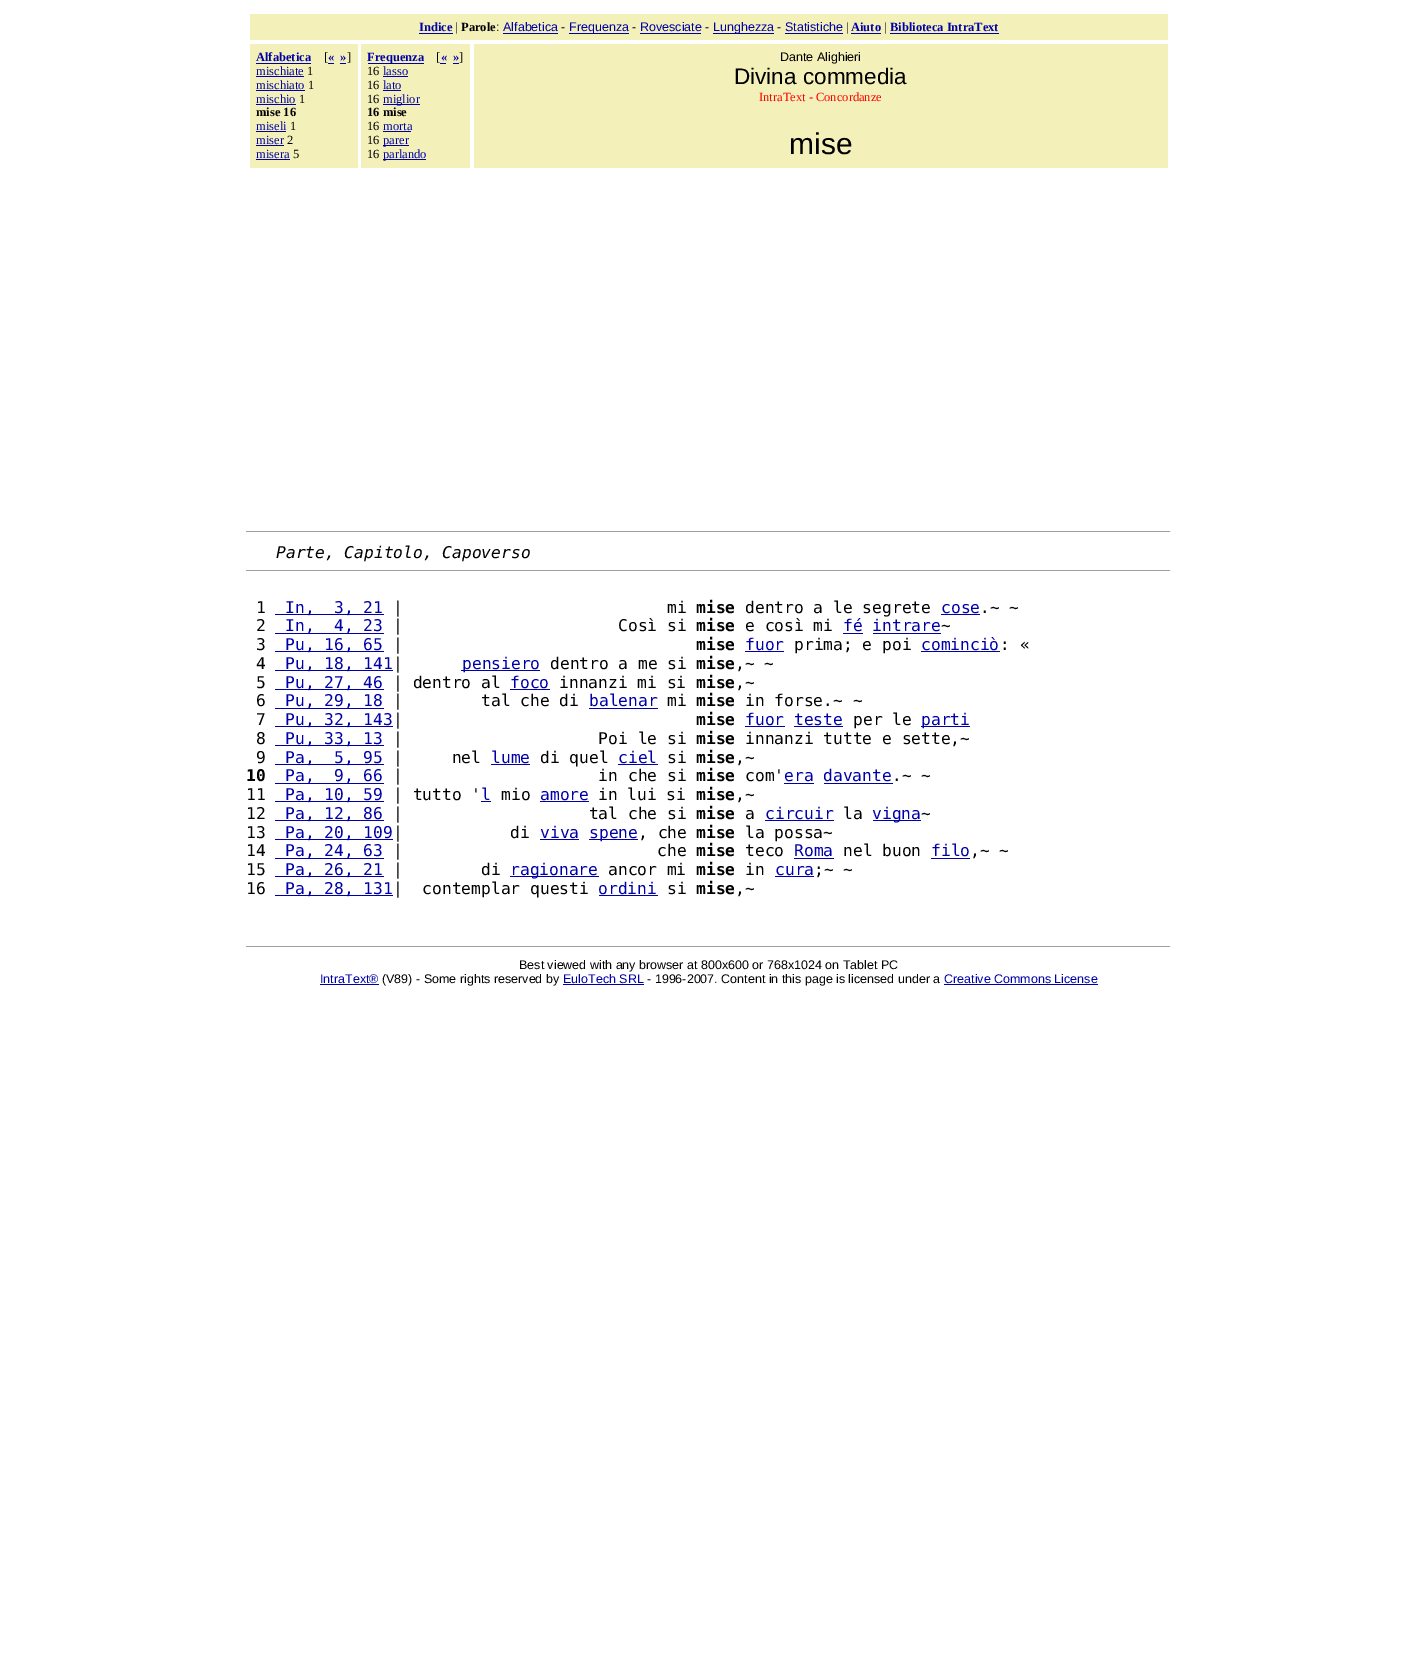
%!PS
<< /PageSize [1417 1676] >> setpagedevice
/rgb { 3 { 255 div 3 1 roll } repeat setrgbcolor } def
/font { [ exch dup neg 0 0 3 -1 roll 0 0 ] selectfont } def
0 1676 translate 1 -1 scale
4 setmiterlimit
255 255 255 rgb
0 0 1417 1676 rectfill
[
  [250 14 918 26 243 240 185]
  [419 33 34 1 0 0 170]
  [503 33 55 1 0 0 170]
  [569 33 60 1 0 0 170]
  [640 33 61 1 0 0 170]
  [713 33 61 1 0 0 170]
  [785 33 58 1 0 0 170]
  [851 33 30 1 0 0 170]
  [890 33 109 1 0 0 170]
  [250 44 108 124 243 240 185]
  [256 63 55 1 0 0 170]
  [328 63 6 1 0 0 170]
  [340 63 6 1 0 0 170]
  [256 76 48 1 0 0 170]
  [256 90 49 1 0 0 170]
  [256 104 40 1 0 0 170]
  [256 131 30 1 0 0 170]
  [256 145 28 1 0 0 170]
  [256 159 34 1 0 0 170]
  [361 44 109 124 243 240 185]
  [368 63 56 1 0 0 170]
  [440 63 6 1 0 0 170]
  [453 63 6 1 0 0 170]
  [383 76 25 1 0 0 170]
  [383 90 18 1 0 0 170]
  [383 104 37 1 0 0 170]
  [383 131 28 1 0 0 170]
  [383 145 26 1 0 0 170]
  [383 159 43 1 0 0 170]
  [474 44 694 124 243 240 185]
  [246 531 925 1 159 159 159]
  [1170 531 1 1 238 238 238]
  [246 570 925 1 159 159 159]
  [1170 570 1 1 238 238 238]
  [275 614 109 1 0 0 170]
  [941 614 39 1 0 0 170]
  [275 633 109 1 0 0 170]
  [843 633 20 1 0 0 170]
  [873 633 68 1 0 0 170]
  [275 651 109 1 0 0 170]
  [745 651 39 1 0 0 170]
  [921 651 79 1 0 0 170]
  [275 670 118 1 0 0 170]
  [461 670 79 1 0 0 170]
  [275 689 109 1 0 0 170]
  [510 689 40 1 0 0 170]
  [275 708 109 1 0 0 170]
  [589 708 69 1 0 0 170]
  [275 726 118 1 0 0 170]
  [745 726 40 1 0 0 170]
  [921 726 49 1 0 0 170]
  [794 726 49 1 0 0 170]
  [275 745 109 1 0 0 170]
  [275 764 109 1 0 0 170]
  [491 764 39 1 0 0 170]
  [618 764 40 1 0 0 170]
  [275 783 109 1 0 0 170]
  [784 783 30 1 0 0 170]
  [824 783 69 1 0 0 170]
  [275 801 109 1 0 0 170]
  [481 801 10 1 0 0 170]
  [540 801 49 1 0 0 170]
  [275 820 109 1 0 0 170]
  [765 820 69 1 0 0 170]
  [873 820 48 1 0 0 170]
  [275 839 118 1 0 0 170]
  [540 839 39 1 0 0 170]
  [589 839 49 1 0 0 170]
  [275 858 109 1 0 0 170]
  [794 858 40 1 0 0 170]
  [931 858 39 1 0 0 170]
  [275 876 109 1 0 0 170]
  [510 876 89 1 0 0 170]
  [775 876 39 1 0 0 170]
  [275 895 118 1 0 0 170]
  [599 895 59 1 0 0 170]
  [246 946 925 1 159 159 159]
  [1170 946 1 1 238 238 238]
  [320 984 59 1 0 0 170]
  [563 984 81 1 0 0 170]
  [944 984 154 1 0 0 170]
] { aload pop rgb rectfill } forall
/LiberationSerif-Bold 12.5 font
419 31 moveto (Indice) show
/LiberationSerif-Regular 12.5 font
0 0 0 rgb
455 31 moveto (|) show
/LiberationSerif-Bold 12.5 font
461 31 moveto (Parole) show
/LiberationSans-Regular 12.5 font
496 31 moveto (:) show
0 0 170 rgb
503 31 moveto (Alfabetica) show
0 0 0 rgb
561 31 moveto (-) show
0 0 170 rgb
569 31 moveto (Frequenza) show
0 0 0 rgb
632 31 moveto (-) show
0 0 170 rgb
640 31 moveto (Rovesciate) show
0 0 0 rgb
705 31 moveto (-) show
0 0 170 rgb
713 31 moveto (Lunghezza) show
0 0 0 rgb
777 31 moveto (-) show
0 0 170 rgb
785 31 moveto (Statistiche) show
/LiberationSerif-Regular 12.5 font
0 0 0 rgb
846 31 moveto (|) show
/LiberationSerif-Bold 12.5 font
0 0 170 rgb
851 31 moveto (Aiuto) show
/LiberationSerif-Regular 12.5 font
0 0 0 rgb
884 31 moveto (|) show
/LiberationSerif-Bold 12.5 font
0 0 170 rgb
890 31 moveto (Biblioteca IntraText) show
256 61 moveto (Alfabetica) show
/LiberationSerif-Regular 12.5 font
0 0 0 rgb
324 61 moveto ([) show
/LiberationSerif-Bold 12.5 font
0 0 170 rgb
328 61 moveto («) show
340 61 moveto (») show
/LiberationSerif-Regular 12.5 font
0 0 0 rgb
347 61 moveto (]) show
0 0 170 rgb
256 75 moveto (mischiate) show
0 0 0 rgb
307 75 moveto (1) show
0 0 170 rgb
256 89 moveto (mischiato) show
0 0 0 rgb
308 89 moveto (1) show
0 0 170 rgb
256 103 moveto (mischio) show
0 0 0 rgb
299 103 moveto (1) show
/LiberationSerif-Bold 12.5 font
256 116 moveto (mise 16) show
/LiberationSerif-Regular 12.5 font
0 0 170 rgb
256 130 moveto (miseli) show
0 0 0 rgb
290 130 moveto (1) show
0 0 170 rgb
256 144 moveto (miser) show
0 0 0 rgb
287 144 moveto (2) show
0 0 170 rgb
256 158 moveto (misera) show
0 0 0 rgb
293 158 moveto (5) show
/LiberationSerif-Bold 12.5 font
0 0 170 rgb
367 61 moveto (Frequenza) show
/LiberationSerif-Regular 12.5 font
0 0 0 rgb
436 61 moveto ([) show
/LiberationSerif-Bold 12.5 font
0 0 170 rgb
441 61 moveto («) show
453 61 moveto (») show
/LiberationSerif-Regular 12.5 font
0 0 0 rgb
459 61 moveto (]) show
367 75 moveto (16) show
0 0 170 rgb
383 75 moveto (lasso) show
0 0 0 rgb
367 89 moveto (16) show
0 0 170 rgb
383 89 moveto (lato) show
0 0 0 rgb
367 103 moveto (16) show
0 0 170 rgb
383 103 moveto (miglior) show
/LiberationSerif-Bold 12.5 font
0 0 0 rgb
367 116 moveto (16 mise) show
/LiberationSerif-Regular 12.5 font
367 130 moveto (16) show
0 0 170 rgb
383 130 moveto (morta) show
0 0 0 rgb
367 144 moveto (16) show
0 0 170 rgb
383 144 moveto (parer) show
0 0 0 rgb
367 158 moveto (16) show
0 0 170 rgb
383 158 moveto (parlando) show
/LiberationSans-Regular 12.5 font
0 0 0 rgb
780 61 moveto (Dante Alighieri) show
/LiberationSans-Regular 22.5 font
734 84 moveto (Divina commedia) show
/LiberationSerif-Regular 12.5 font
255 0 0 rgb
759 101 moveto (IntraText - Concordanze) show
/LiberationSans-Regular 30 font
0 0 0 rgb
789 154 moveto (mise) show
/DejaVuSansMono-Italic 16.25 font
276 558 moveto (Parte, Capitolo, Capoverso) show
/DejaVuSansMono-Regular 16.25 font
256 613 moveto (1) show
0 0 170 rgb
285 613 moveto (In,  3, 21) show
0 0 0 rgb
393 613 moveto (|                           mi) show
/DejaVuSansMono-Bold 16.25 font
696 613 moveto (mise) show
/DejaVuSansMono-Regular 16.25 font
745 613 moveto (dentro a le segrete) show
0 0 170 rgb
941 613 moveto (cose) show
0 0 0 rgb
980 613 moveto (.~ ~) show
256 631 moveto (2) show
0 0 170 rgb
285 631 moveto (In,  4, 23) show
0 0 0 rgb
393 631 moveto (|                      Così si) show
/DejaVuSansMono-Bold 16.25 font
696 631 moveto (mise) show
/DejaVuSansMono-Regular 16.25 font
745 631 moveto (e così mi) show
0 0 170 rgb
843 631 moveto (fé intrare) show
0 0 0 rgb
941 631 moveto (~) show
256 650 moveto (3) show
0 0 170 rgb
285 650 moveto (Pu, 16, 65) show
0 0 0 rgb
393 650 moveto (|) show
/DejaVuSansMono-Bold 16.25 font
696 650 moveto (mise) show
/DejaVuSansMono-Regular 16.25 font
0 0 170 rgb
745 650 moveto (fuor) show
0 0 0 rgb
794 650 moveto (prima; e poi) show
0 0 170 rgb
921 650 moveto (cominciò) show
0 0 0 rgb
1000 650 moveto (: «) show
256 669 moveto (4) show
0 0 170 rgb
285 669 moveto (Pu, 18, 141) show
0 0 0 rgb
393 669 moveto (|) show
0 0 170 rgb
462 669 moveto (pensiero) show
0 0 0 rgb
550 669 moveto (dentro a me si) show
/DejaVuSansMono-Bold 16.25 font
696 669 moveto (mise) show
/DejaVuSansMono-Regular 16.25 font
735 669 moveto (,~ ~) show
256 688 moveto (5) show
0 0 170 rgb
285 688 moveto (Pu, 27, 46) show
0 0 0 rgb
393 688 moveto (| dentro al) show
0 0 170 rgb
510 688 moveto (foco) show
0 0 0 rgb
559 688 moveto (innanzi mi si) show
/DejaVuSansMono-Bold 16.25 font
696 688 moveto (mise) show
/DejaVuSansMono-Regular 16.25 font
735 688 moveto (,~) show
256 706 moveto (6) show
0 0 170 rgb
285 706 moveto (Pu, 29, 18) show
0 0 0 rgb
393 706 moveto (|        tal che di) show
0 0 170 rgb
589 706 moveto (balenar) show
0 0 0 rgb
667 706 moveto (mi) show
/DejaVuSansMono-Bold 16.25 font
696 706 moveto (mise) show
/DejaVuSansMono-Regular 16.25 font
745 706 moveto (in forse.~ ~) show
256 725 moveto (7) show
0 0 170 rgb
285 725 moveto (Pu, 32, 143) show
0 0 0 rgb
393 725 moveto (|) show
/DejaVuSansMono-Bold 16.25 font
696 725 moveto (mise) show
/DejaVuSansMono-Regular 16.25 font
0 0 170 rgb
745 725 moveto (fuor teste) show
0 0 0 rgb
853 725 moveto (per le) show
0 0 170 rgb
921 725 moveto (parti) show
0 0 0 rgb
256 744 moveto (8) show
0 0 170 rgb
285 744 moveto (Pu, 33, 13) show
0 0 0 rgb
393 744 moveto (|                    Poi le si) show
/DejaVuSansMono-Bold 16.25 font
696 744 moveto (mise) show
/DejaVuSansMono-Regular 16.25 font
745 744 moveto (innanzi tutte e sette,~) show
256 763 moveto (9) show
0 0 170 rgb
285 763 moveto (Pa,  5, 95) show
0 0 0 rgb
393 763 moveto (|     nel) show
0 0 170 rgb
491 763 moveto (lume) show
0 0 0 rgb
540 763 moveto (di quel) show
0 0 170 rgb
618 763 moveto (ciel) show
0 0 0 rgb
667 763 moveto (si) show
/DejaVuSansMono-Bold 16.25 font
696 763 moveto (mise) show
/DejaVuSansMono-Regular 16.25 font
735 763 moveto (,~) show
/DejaVuSansMono-Bold 16.25 font
246 781 moveto (10) show
/DejaVuSansMono-Regular 16.25 font
0 0 170 rgb
285 781 moveto (Pa,  9, 66) show
0 0 0 rgb
393 781 moveto (|                    in che si) show
/DejaVuSansMono-Bold 16.25 font
696 781 moveto (mise) show
/DejaVuSansMono-Regular 16.25 font
745 781 moveto (com') show
0 0 170 rgb
784 781 moveto (era davante) show
0 0 0 rgb
892 781 moveto (.~ ~) show
246 800 moveto (11) show
0 0 170 rgb
285 800 moveto (Pa, 10, 59) show
0 0 0 rgb
393 800 moveto (| tutto ') show
0 0 170 rgb
481 800 moveto (l) show
0 0 0 rgb
501 800 moveto (mio) show
0 0 170 rgb
540 800 moveto (amore) show
0 0 0 rgb
598 800 moveto (in lui si) show
/DejaVuSansMono-Bold 16.25 font
696 800 moveto (mise) show
/DejaVuSansMono-Regular 16.25 font
735 800 moveto (,~) show
246 819 moveto (12) show
0 0 170 rgb
285 819 moveto (Pa, 12, 86) show
0 0 0 rgb
393 819 moveto (|                   tal che si) show
/DejaVuSansMono-Bold 16.25 font
696 819 moveto (mise) show
/DejaVuSansMono-Regular 16.25 font
745 819 moveto (a) show
0 0 170 rgb
765 819 moveto (circuir) show
0 0 0 rgb
843 819 moveto (la) show
0 0 170 rgb
872 819 moveto (vigna) show
0 0 0 rgb
921 819 moveto (~) show
246 838 moveto (13) show
0 0 170 rgb
285 838 moveto (Pa, 20, 109) show
0 0 0 rgb
393 838 moveto (|           di) show
0 0 170 rgb
540 838 moveto (viva) show
589 838 moveto (spene) show
0 0 0 rgb
638 838 moveto (, che) show
/DejaVuSansMono-Bold 16.25 font
696 838 moveto (mise) show
/DejaVuSansMono-Regular 16.25 font
745 838 moveto (la possa~) show
246 856 moveto (14) show
0 0 170 rgb
285 856 moveto (Pa, 24, 63) show
0 0 0 rgb
393 856 moveto (|                          che) show
/DejaVuSansMono-Bold 16.25 font
696 856 moveto (mise) show
/DejaVuSansMono-Regular 16.25 font
745 856 moveto (teco) show
0 0 170 rgb
794 856 moveto (Roma) show
0 0 0 rgb
843 856 moveto (nel buon) show
0 0 170 rgb
931 856 moveto (filo) show
0 0 0 rgb
970 856 moveto (,~ ~) show
246 875 moveto (15) show
0 0 170 rgb
285 875 moveto (Pa, 26, 21) show
0 0 0 rgb
393 875 moveto (|        di) show
0 0 170 rgb
510 875 moveto (ragionare) show
0 0 0 rgb
608 875 moveto (ancor mi) show
/DejaVuSansMono-Bold 16.25 font
696 875 moveto (mise) show
/DejaVuSansMono-Regular 16.25 font
745 875 moveto (in) show
0 0 170 rgb
775 875 moveto (cura) show
0 0 0 rgb
814 875 moveto (;~ ~) show
246 894 moveto (16) show
0 0 170 rgb
285 894 moveto (Pa, 28, 131) show
0 0 0 rgb
393 894 moveto (|  contemplar questi) show
0 0 170 rgb
598 894 moveto (ordini) show
0 0 0 rgb
667 894 moveto (si) show
/DejaVuSansMono-Bold 16.25 font
696 894 moveto (mise) show
/DejaVuSansMono-Regular 16.25 font
735 894 moveto (,~) show
/LiberationSans-Regular 12.5 font
519 969 moveto (Best viewed with any browser at 800x600 or 768x1024 on Tablet PC) show
0 0 170 rgb
320 983 moveto (IntraText®) show
0 0 0 rgb
382 983 moveto (\(V89\) - Some rights reserved by) show
0 0 170 rgb
563 983 moveto (EuloTech SRL) show
0 0 0 rgb
647 983 moveto (- 1996-2007. Content in this page is licensed under a) show
0 0 170 rgb
944 983 moveto (Creative Commons License) show
showpage
